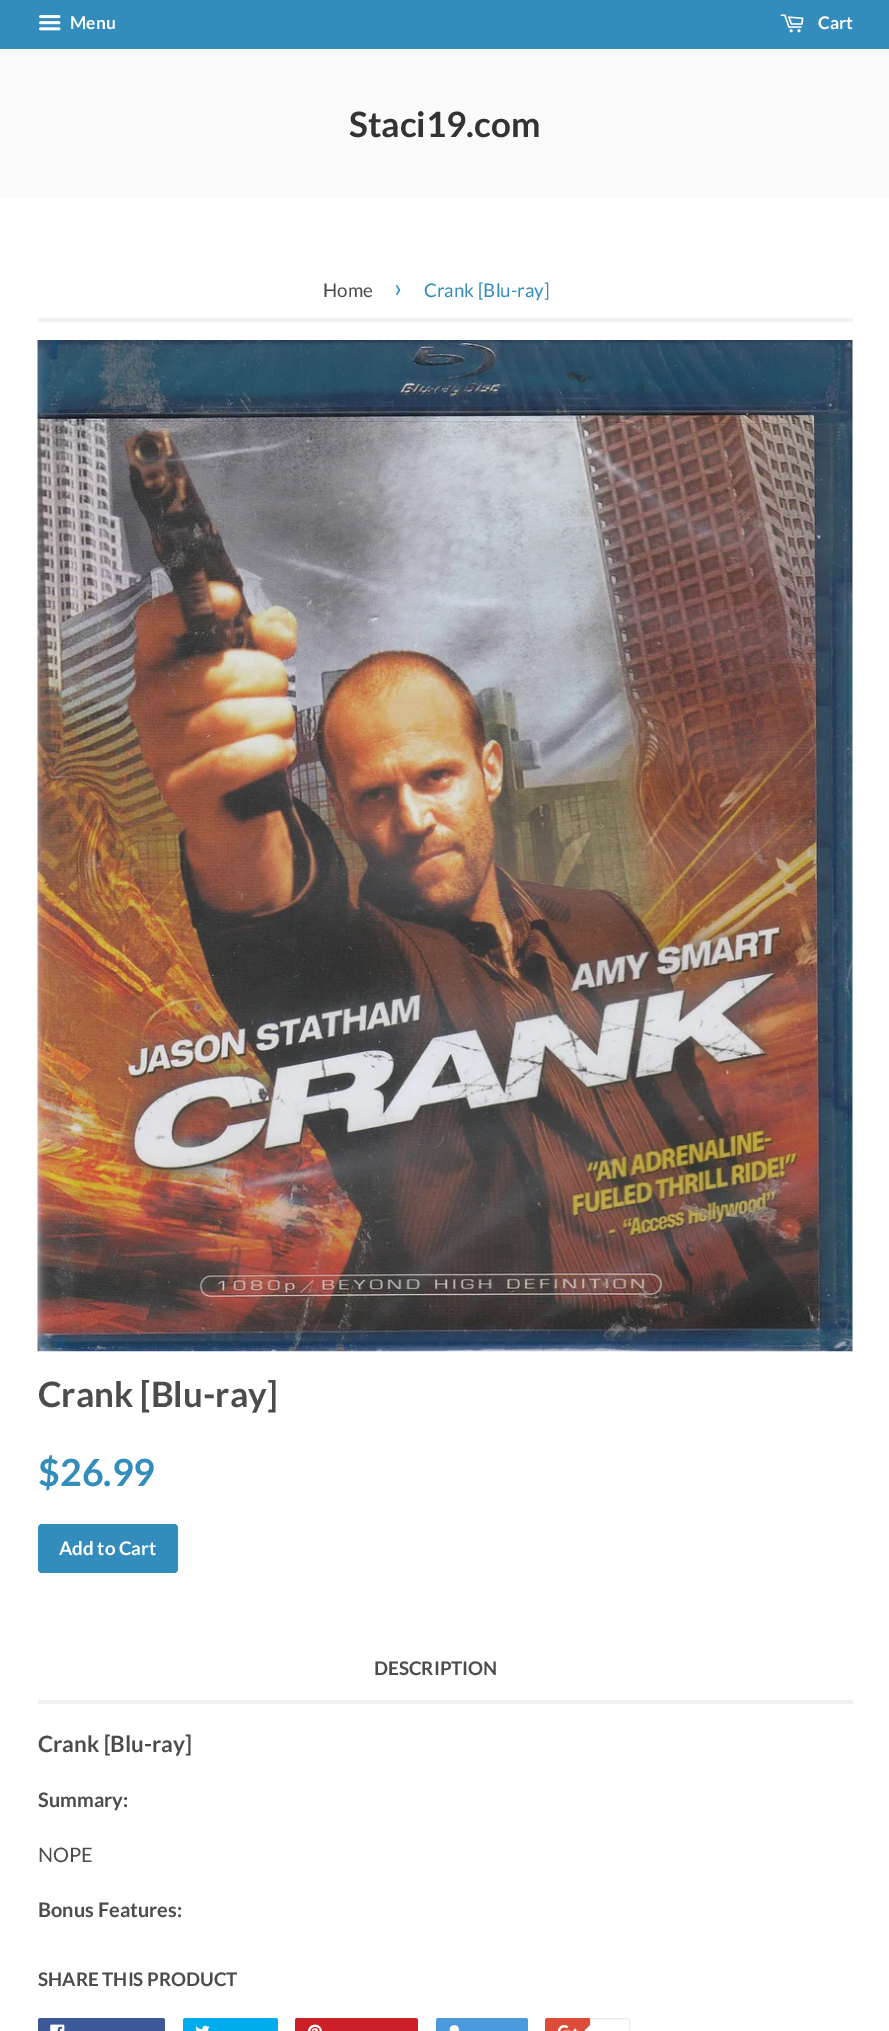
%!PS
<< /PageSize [889 2031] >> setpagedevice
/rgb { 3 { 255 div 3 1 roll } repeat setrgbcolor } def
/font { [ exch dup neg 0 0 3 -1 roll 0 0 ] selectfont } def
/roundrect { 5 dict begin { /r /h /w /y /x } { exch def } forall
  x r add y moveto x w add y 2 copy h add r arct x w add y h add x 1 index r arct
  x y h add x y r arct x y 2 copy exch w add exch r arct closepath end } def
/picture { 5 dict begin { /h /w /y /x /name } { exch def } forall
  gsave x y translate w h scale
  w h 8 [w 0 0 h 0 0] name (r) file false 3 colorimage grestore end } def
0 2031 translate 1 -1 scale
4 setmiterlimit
255 255 255 rgb
0 0 889 2031 rectfill
51 141 188 rgb
0 0 889 49 rectfill
(img/1.rgb) 39 15 22 16 picture
(img/2.rgb) 780 14 24 19 picture
250 250 250 rgb
0 49 889 149 rectfill
240 240 240 rgb
38 318 815 4 rectfill
(img/3.rgb) 37 340 816 1012 picture
51 141 188 rgb
38 1524 140 49 4 roundrect fill
240 240 240 rgb
38 1700 815 4 rectfill
59 89 152 rgb
38 2018 127 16 2.5 roundrect fill
(img/4.rgb) 50 2024 15 7 picture
0 172 237 rgb
183 2018 95 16 2.5 roundrect fill
(img/5.rgb) 195 2025 15 6 picture
203 32 39 rgb
295 2018 123 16 2.5 roundrect fill
(img/6.rgb) 308 2024 14 7 picture
73 153 220 rgb
436 2018 92 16 2.5 roundrect fill
(img/7.rgb) 449 2025 10 6 picture
221 75 57 rgb
545 2018 83 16 2.5 roundrect fill
(img/8.rgb) 557 2025 21 6 picture
255 255 255 rgb
590.5 2018.5 moveto 627.5 2018.5 lineto 628.5 2018.5 629.5 2019.5 629.5 2020.5 curveto 629.5 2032.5 lineto 629.5 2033.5 628.5 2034.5 627.5 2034.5 curveto 590.5 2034.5 lineto closepath gsave fill grestore
236 236 236 rgb
stroke
591 2024 moveto 591 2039 lineto 584 2031 lineto closepath fill
255 255 255 rgb
592.5 2024 moveto 592.5 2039 lineto 585 2031 lineto closepath fill
/Lato-Bold 17.5 font
70 29 moveto (Menu) show
818 29 moveto (Cart) show
/Lato-Bold 35 font
51 51 51 rgb
349 137 moveto (Staci19.com) show
/Lato-Regular 18.75 font
76 76 76 rgb
323 297 moveto (Home) show
/Lato-Regular 26 font
51 141 188 rgb
394 297 moveto (›) show
/Lato-Regular 18.75 font
424 297 moveto (Crank [Blu-ray]) show
/Lato-Bold 35 font
76 76 76 rgb
38 1407 moveto (Crank [Blu-ray]) show
/Lato-Bold 37.5 font
51 141 188 rgb
38 1486 moveto ($26.99) show
/Lato-Bold 18.75 font
255 255 255 rgb
59 1555 moveto (Add to Cart) show
76 76 76 rgb
374 1675 moveto (DESCRIPTION) show
/Lato-Bold 22.5 font
38 1752 moveto (Crank [Blu-ray]) show
/Lato-Bold 20 font
38 1807 moveto (Summary:) show
/Lato-Regular 20 font
38 1862 moveto (NOPE) show
/Lato-Bold 20 font
38 1917 moveto (Bonus Features:) show
/Lato-Bold 18.75 font
38 1986 moveto (SHARE THIS PRODUCT) show
showpage
